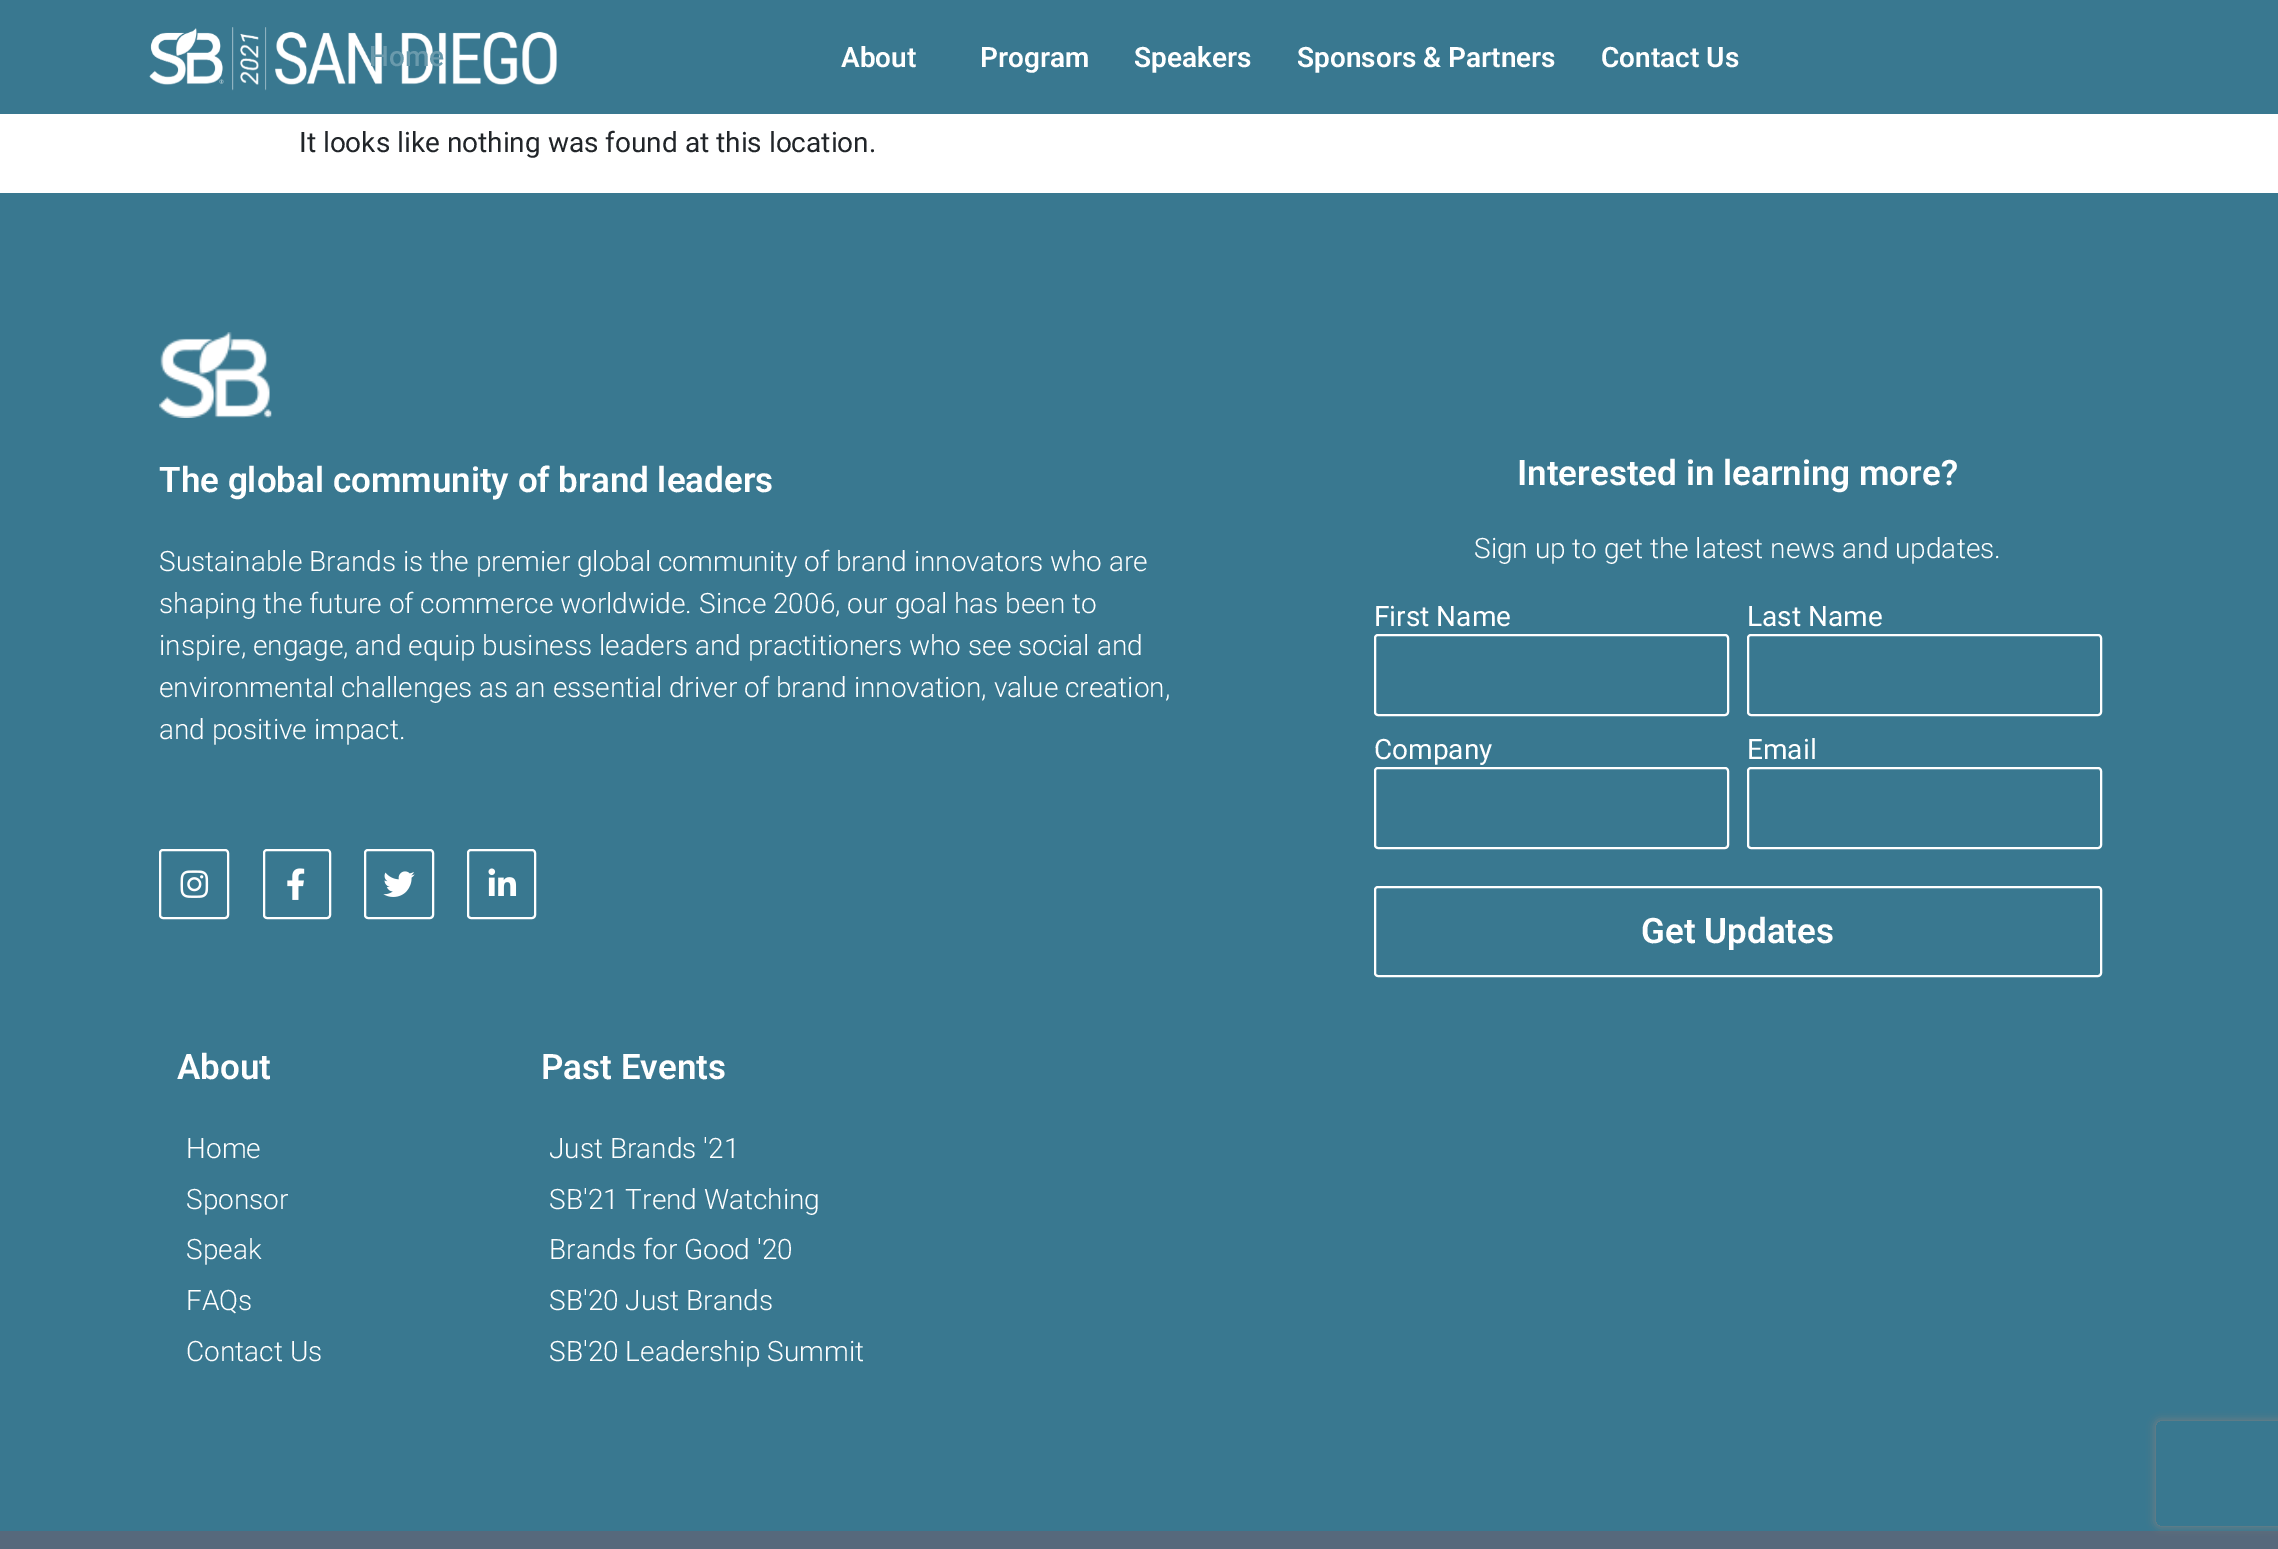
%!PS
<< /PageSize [2278 1549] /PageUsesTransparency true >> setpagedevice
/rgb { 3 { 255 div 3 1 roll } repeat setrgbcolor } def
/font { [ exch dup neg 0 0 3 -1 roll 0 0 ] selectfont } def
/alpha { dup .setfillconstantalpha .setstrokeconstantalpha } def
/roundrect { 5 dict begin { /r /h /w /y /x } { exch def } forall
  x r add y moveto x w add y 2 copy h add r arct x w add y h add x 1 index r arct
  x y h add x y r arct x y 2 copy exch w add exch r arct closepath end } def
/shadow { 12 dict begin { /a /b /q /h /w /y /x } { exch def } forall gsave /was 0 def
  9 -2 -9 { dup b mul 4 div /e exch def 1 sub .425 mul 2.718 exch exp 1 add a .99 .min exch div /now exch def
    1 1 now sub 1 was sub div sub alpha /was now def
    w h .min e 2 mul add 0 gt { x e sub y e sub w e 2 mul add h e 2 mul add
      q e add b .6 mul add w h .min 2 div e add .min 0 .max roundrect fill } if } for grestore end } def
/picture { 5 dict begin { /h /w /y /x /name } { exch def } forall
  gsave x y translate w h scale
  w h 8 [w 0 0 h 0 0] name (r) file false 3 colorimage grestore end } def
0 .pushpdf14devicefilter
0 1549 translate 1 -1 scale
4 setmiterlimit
255 255 255 rgb
0 0 2278 1549 rectfill
57 120 144 rgb
0 0 2278 114 rectfill
(img/1.rgb) 149 27 408 64 picture
0 193 2278 1338 rectfill
(img/2.rgb) 159 332 113 86 picture
255 255 255 rgb
2 setlinewidth
160 850 68 68 3 roundrect stroke
(img/3.rgb) 180 870 29 28 picture
264 850 66 68 3 roundrect stroke
(img/4.rgb) 287 868 18 32 picture
365 850 68 68 3 roundrect stroke
(img/5.rgb) 383 871 32 26 picture
468 850 67 68 3 roundrect stroke
(img/6.rgb) 488 868 29 28 picture
1375 635 353 80 3 roundrect stroke
1748 635 353 80 3 roundrect stroke
1375 768 353 80 3 roundrect stroke
1748 768 353 80 3 roundrect stroke
1375 887 726 89 3 roundrect stroke
86 105 124 rgb
0 1531 2278 18 rectfill
gsave
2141 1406 moveto 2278 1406 lineto 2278 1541 lineto 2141 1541 lineto closepath 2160 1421 moveto 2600 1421 lineto 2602 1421 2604 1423 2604 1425 curveto 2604 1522 lineto 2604 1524 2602 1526 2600 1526 curveto 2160 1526 lineto 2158 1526 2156 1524 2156 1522 curveto 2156 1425 lineto 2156 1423 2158 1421 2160 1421 curveto closepath eoclip newpath
128 128 128 rgb
2156 1421 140 105 4 4.5 1 shadow
grestore
/Roboto-Medium 28 font
106 154 172 rgb
369 66 moveto (Home) show
/Roboto-SemiBold 28 font
255 255 255 rgb
[
  [(About) 841 67]
  [(Program) 980 67]
  [(Speakers) 1134 67]
  [(Sponsors & Partners) 1297 67]
  [(Contact Us) 1601 67]
] { aload pop moveto show } forall
/Roboto-Regular 28 font
33 37 41 rgb
299 152 moveto (It looks like nothing was found at this location.) show
/Roboto-SemiBold 35 font
255 255 255 rgb
159 492 moveto (The global community of brand leaders) show
/Roboto-Light 28 font
[
  [(Sustainable Brands is the premier global community of brand innovators who are) 159 571]
  [(shaping the future of commerce worldwide. Since 2006, our goal has been to) 159 613]
  [(inspire, engage, and equip business leaders and practitioners who see social and) 159 655]
  [(environmental challenges as an essential driver of brand innovation, value creation,) 159 697]
  [(and positive impact.) 159 739]
] { aload pop moveto show } forall
/Roboto-SemiBold 35 font
177 1079 moveto (About) show
/Roboto-Light 28 font
[
  [(Home) 186 1158]
  [(Sponsor) 186 1209]
  [(Speak) 186 1259]
  [(FAQs) 186 1310]
  [(Contact Us) 186 1361]
] { aload pop moveto show } forall
/Roboto-SemiBold 35 font
541 1079 moveto (Past Events) show
/Roboto-Light 28 font
[
  [(Just Brands '21) 549 1158]
  [(SB'21 Trend Watching) 549 1209]
  [(Brands for Good '20) 549 1259]
  [(SB'20 Just Brands) 549 1310]
  [(SB'20 Leadership Summit) 549 1361]
] { aload pop moveto show } forall
/Roboto-SemiBold 35 font
1517 485 moveto (Interested in learning more?) show
/Roboto-Light 28 font
1474 558 moveto (Sign up to get the latest news and updates.) show
/Roboto-Regular 28 font
[
  [(First Name) 1374 626]
  [(Last Name) 1747 626]
  [(Company) 1374 759]
  [(Email) 1747 759]
] { aload pop moveto show } forall
/Roboto-SemiBold 35 font
1641 943 moveto (Get Updates) show
.poppdf14devicefilter showpage
